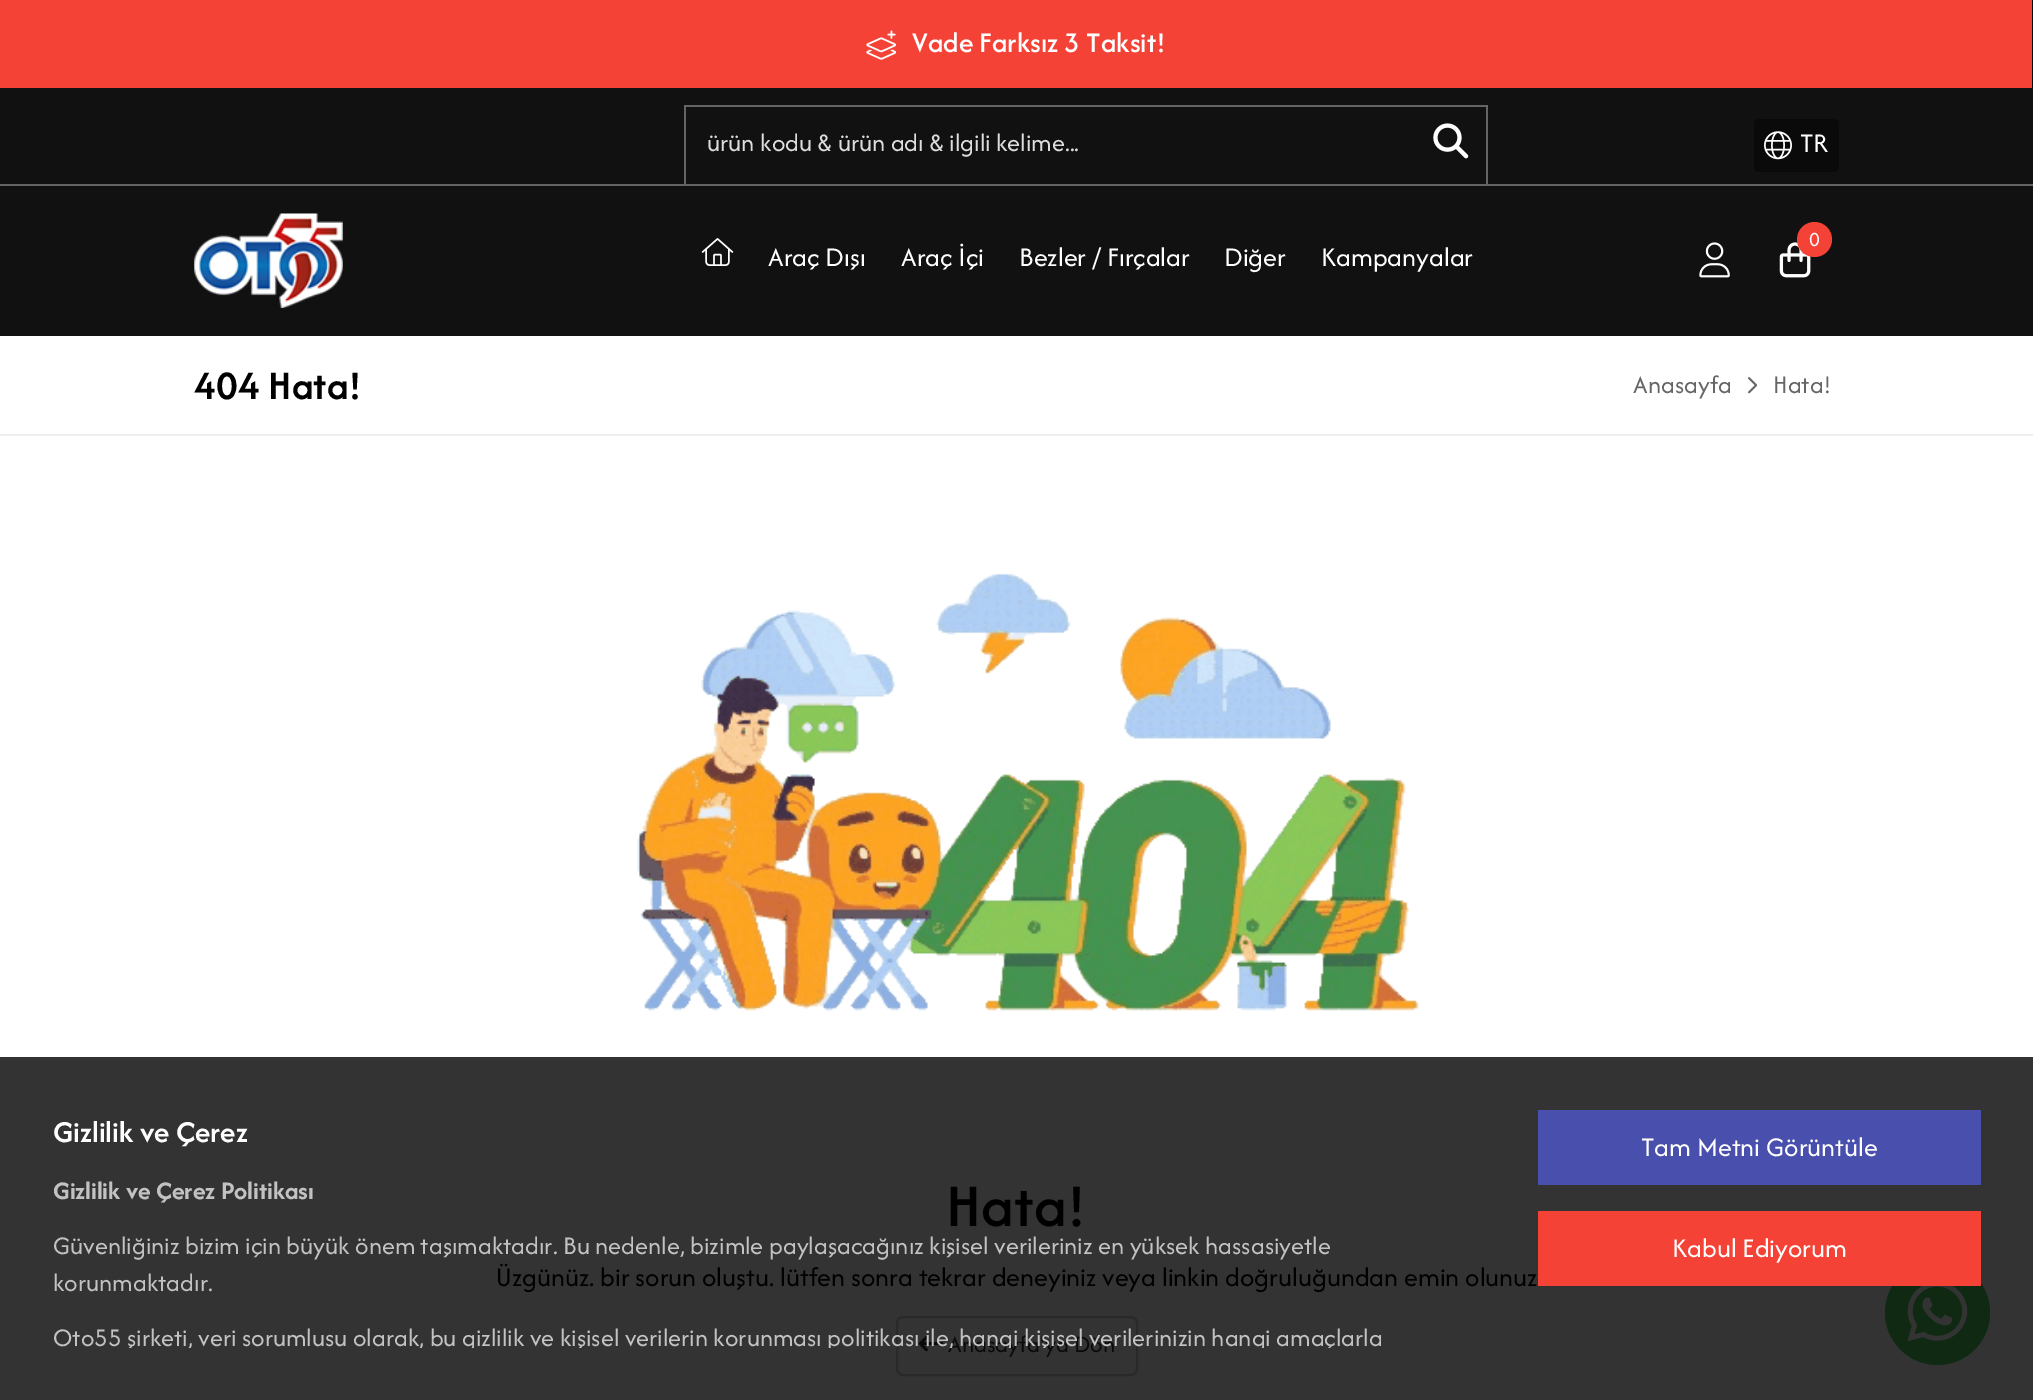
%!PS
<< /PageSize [2033 1400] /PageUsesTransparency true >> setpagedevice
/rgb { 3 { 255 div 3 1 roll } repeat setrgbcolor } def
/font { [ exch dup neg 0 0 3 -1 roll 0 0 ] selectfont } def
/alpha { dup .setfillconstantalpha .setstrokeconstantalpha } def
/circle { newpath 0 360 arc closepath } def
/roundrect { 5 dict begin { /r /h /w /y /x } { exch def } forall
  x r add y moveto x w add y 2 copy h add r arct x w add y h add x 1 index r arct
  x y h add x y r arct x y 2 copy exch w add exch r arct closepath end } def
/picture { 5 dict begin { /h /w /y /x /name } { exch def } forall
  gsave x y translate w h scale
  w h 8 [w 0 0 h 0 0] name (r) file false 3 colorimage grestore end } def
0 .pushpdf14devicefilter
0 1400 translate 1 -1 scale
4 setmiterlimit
255 255 255 rgb
0 0 2033 1400 rectfill
[
  [0 1057 2033 343 51 51 51]
  [2032 0 1 88 0 0 0]
  [0 0 2032 88 244 67 54]
] { aload pop rgb rectfill } forall
(img/1.rgb) 866 30 31 30 picture
17 17 17 rgb
0 88 2033 248 rectfill
100 100 100 rgb
0 184 2033 2 rectfill
684 105 moveto 1488 105 lineto 1486 107 lineto 686 107 lineto closepath fill
0.35 alpha
255 255 255 rgb
1488 105 moveto 1488 184 lineto 1486 184 lineto 1486 107 lineto closepath fill
684 184 moveto 684 105 lineto 686 107 lineto 686 184 lineto closepath fill
1 alpha
(img/2.rgb) 1433 123 36 36 picture
10 10 10 rgb
1754 119 85 53 5 roundrect fill
(img/3.rgb) 1764 131 28 29 picture
(img/4.rgb) 1779 242 32 36 picture
244 67 54 rgb
1814.5 239.5 17.5 circle fill
(img/5.rgb) 1699 242 31 36 picture
(img/6.rgb) 194 213 149 95 picture
(img/7.rgb) 701 238 33 28 picture
238 238 238 rgb
0 434 2033 2 rectfill
(img/8.rgb) 1748 377 10 17 picture
73 79 172 rgb
1538 1110 443 75 rectfill
16 41 19 rgb
1937.5 1312.5 52.5 circle fill
244 67 54 rgb
1538 1211 443 75 rectfill
(img/9.rgb) 637 573 782 438 picture
41 41 41 rgb
2 setlinewidth
897 1317 240 58 6 roundrect stroke
(img/10.rgb) 918 1335 26 17 picture
(img/11.rgb) 1907 1286 61 56 picture
/AfacadFlux-Medium 29.75 font
255 255 255 rgb
912 52 moveto (Vade Farksız 3 Taksit!) show
/AfacadFlux-Regular 26.25 font
221 221 221 rgb
707 151 moveto (ürün kodu & ürün adı & ilgili kelime...) show
/AfacadFlux-Regular 28 font
255 255 255 rgb
1800 152 moveto (TR) show
/AfacadFlux-Regular 21 font
1809 246 moveto (0) show
/AfacadFlux-Regular 28 font
[
  [(Araç Dışı) 768 266]
  [(Araç İçi) 901 266]
  [(Bezler / Fırçalar) 1019 266]
  [(Diğer) 1224 266]
  [(Kampanyalar) 1321 266]
] { aload pop moveto show } forall
/AfacadFlux-SemiBold 42 font
0 0 0 rgb
194 399 moveto (404 Hata!) show
/AfacadFlux-Regular 26.25 font
102 102 102 rgb
1633 393 moveto (Anasayfa) show
1773 393 moveto (Hata!) show
/AfacadFlux-SemiBold 31.5 font
255 255 255 rgb
53 1142 moveto (Gizlilik ve Çerez) show
/AfacadFlux-Bold 26.25 font
194 194 194 rgb
53 1199 moveto (Gizlilik ve Çerez Politikası) show
/AfacadFlux-Regular 26.25 font
53 1254 moveto (Güvenliğiniz bizim için büyük önem taşımaktadır. Bu nedenle, bizimle paylaşacağınız kişisel verileriniz en yüksek hassasiyetle) show
53 1291 moveto (korunmaktadır.) show
/AfacadFlux-Regular 28 font
255 255 255 rgb
1641 1156 moveto (Tam Metni Görüntüle) show
1672 1257 moveto (Kabul Ediyorum) show
/AfacadFlux-Medium 63 font
0 0 0 rgb
946 1226 moveto (Hata!) show
/AfacadFlux-Regular 28 font
496 1286 moveto (Üzgünüz. bir sorun oluştu. lütfen sonra tekrar deneyiniz veya linkin doğruluğundan emin olunuz) show
/AfacadFlux-Regular 24.5 font
10 10 10 rgb
948 1352 moveto (Anasayfa'ya Dön) show
gsave
53 1173 1433 175 rectclip
/AfacadFlux-Regular 26.25 font
194 194 194 rgb
53 1346 moveto (Oto55 şirketi, veri sorumlusu olarak, bu gizlilik ve kişisel verilerin korunması politikası ile, hangi kişisel verilerinizin hangi amaçlarla) show
grestore
.poppdf14devicefilter showpage
